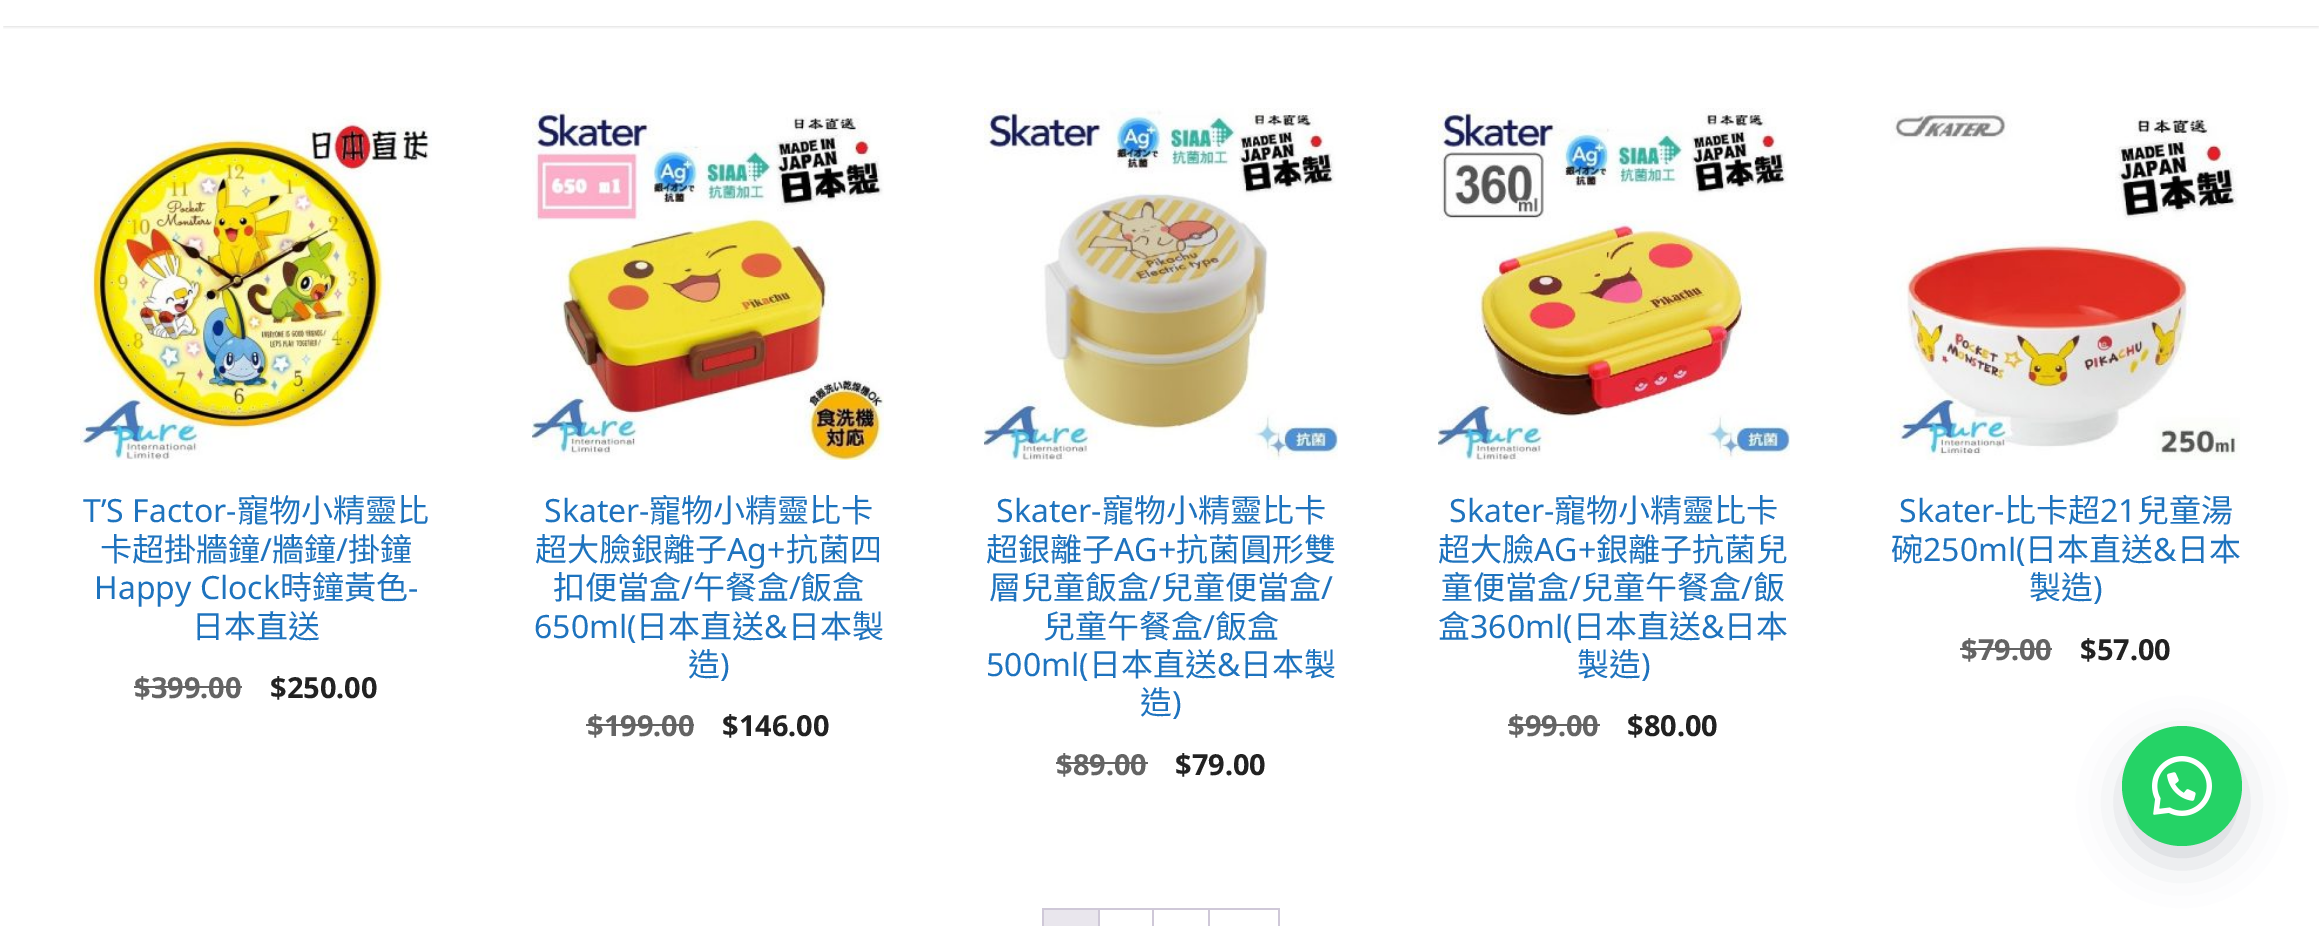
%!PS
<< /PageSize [2321 926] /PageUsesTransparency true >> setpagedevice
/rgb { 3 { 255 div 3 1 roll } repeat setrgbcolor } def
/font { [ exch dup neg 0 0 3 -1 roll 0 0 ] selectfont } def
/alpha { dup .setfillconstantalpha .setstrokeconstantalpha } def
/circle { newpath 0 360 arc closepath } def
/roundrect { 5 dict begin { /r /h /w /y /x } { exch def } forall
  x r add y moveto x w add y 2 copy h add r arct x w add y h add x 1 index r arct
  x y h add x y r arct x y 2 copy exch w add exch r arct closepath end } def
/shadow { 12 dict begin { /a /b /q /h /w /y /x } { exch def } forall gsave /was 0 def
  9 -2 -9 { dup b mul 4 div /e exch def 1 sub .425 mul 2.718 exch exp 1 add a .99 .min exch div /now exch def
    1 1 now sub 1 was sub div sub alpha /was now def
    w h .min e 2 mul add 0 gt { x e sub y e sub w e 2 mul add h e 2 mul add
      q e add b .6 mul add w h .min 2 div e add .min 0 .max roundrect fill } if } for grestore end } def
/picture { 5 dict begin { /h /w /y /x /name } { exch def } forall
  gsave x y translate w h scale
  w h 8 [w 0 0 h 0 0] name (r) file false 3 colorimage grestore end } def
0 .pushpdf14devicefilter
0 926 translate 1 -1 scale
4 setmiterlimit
255 255 255 rgb
0 0 2321 926 rectfill
gsave
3 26 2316 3 rectclip
0 0 0 rgb
4 -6 2314 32 0 2 0.2 shadow
grestore
(img/1.rgb) 80 116 352 344 picture
100 100 100 rgb
134 686 108 2 rectfill
(img/2.rgb) 532 108 352 352 picture
586 724 108 2 rectfill
(img/3.rgb) 984 108 354 352 picture
1056 762 92 2 rectfill
(img/4.rgb) 1438 108 352 352 picture
1508 724 92 2 rectfill
(img/5.rgb) 1890 109 350 351 picture
[
  [1960 648 92 2 100 100 100]
  [1042 908 238 2 207 200 216]
  [1042 908 2 18 207 200 216]
  [1098 910 2 16 207 200 216]
  [1044 910 54 16 233 230 237]
  [1152 910 2 16 207 200 216]
  [1208 910 2 16 207 200 216]
  [1278 910 2 16 207 200 216]
] { aload pop rgb rectfill } forall
45 62 79 rgb
2132 752 100 100 50 25 0.3 shadow
37 211 102 rgb
2182 786 60 circle fill
(img/6.rgb) 2152 756 60 60 picture
/NotoSans-Regular 32 font
30 115 190 rgb
83 522 moveto (T’S Factor-) show
/NotoSansCJKTC-Regular 32 font
237 522 moveto (寵物小精靈比) show
100 561 moveto (卡超掛牆鐘) show
/NotoSans-Regular 32 font
260 561 moveto (/) show
/NotoSansCJKTC-Regular 32 font
272 561 moveto (牆鐘) show
/NotoSans-Regular 32 font
336 561 moveto (/) show
/NotoSansCJKTC-Regular 32 font
348 561 moveto (掛鐘) show
/NotoSans-Regular 32 font
94 599 moveto (Happy Clock) show
/NotoSansCJKTC-Regular 32 font
280 599 moveto (時鐘黃色) show
/NotoSans-Regular 32 font
408 599 moveto (-) show
/NotoSansCJKTC-Regular 32 font
192 638 moveto (日本直送) show
/NotoSans-Bold 29 font
100 100 100 rgb
134 698 moveto ($399.00) show
34 34 34 rgb
270 698 moveto ($250.00) show
/NotoSans-Regular 32 font
30 115 190 rgb
544 522 moveto (Skater-) show
/NotoSansCJKTC-Regular 32 font
649 522 moveto (寵物小精靈比卡) show
535 561 moveto (超大臉銀離子) show
/NotoSans-Regular 32 font
727 561 moveto (Ag+) show
/NotoSansCJKTC-Regular 32 font
786 561 moveto (抗菌四) show
553 599 moveto (扣便當盒) show
/NotoSans-Regular 32 font
681 599 moveto (/) show
/NotoSansCJKTC-Regular 32 font
693 599 moveto (午餐盒) show
/NotoSans-Regular 32 font
789 599 moveto (/) show
/NotoSansCJKTC-Regular 32 font
800 599 moveto (飯盒) show
/NotoSans-Regular 32 font
534 638 moveto (650ml\() show
/NotoSansCJKTC-Regular 32 font
636 638 moveto (日本直送) show
/NotoSans-Regular 32 font
764 638 moveto (&) show
/NotoSansCJKTC-Regular 32 font
788 638 moveto (日本製) show
688 676 moveto (造) show
/NotoSans-Regular 32 font
720 676 moveto (\)) show
/NotoSans-Bold 29 font
100 100 100 rgb
587 736 moveto ($199.00) show
34 34 34 rgb
722 736 moveto ($146.00) show
/NotoSans-Regular 32 font
30 115 190 rgb
996 522 moveto (Skater-) show
/NotoSansCJKTC-Regular 32 font
1102 522 moveto (寵物小精靈比卡) show
986 561 moveto (超銀離子) show
/NotoSans-Regular 32 font
1114 561 moveto (AG+) show
/NotoSansCJKTC-Regular 32 font
1176 561 moveto (抗菌圓形雙) show
989 599 moveto (層兒童飯盒) show
/NotoSans-Regular 32 font
1149 599 moveto (/) show
/NotoSansCJKTC-Regular 32 font
1161 599 moveto (兒童便當盒) show
/NotoSans-Regular 32 font
1321 599 moveto (/) show
/NotoSansCJKTC-Regular 32 font
1043 638 moveto (兒童午餐盒) show
/NotoSans-Regular 32 font
1203 638 moveto (/) show
/NotoSansCJKTC-Regular 32 font
1215 638 moveto (飯盒) show
/NotoSans-Regular 32 font
986 676 moveto (500ml\() show
/NotoSansCJKTC-Regular 32 font
1089 676 moveto (日本直送) show
/NotoSans-Regular 32 font
1217 676 moveto (&) show
/NotoSansCJKTC-Regular 32 font
1240 676 moveto (日本製) show
1140 714 moveto (造) show
/NotoSans-Regular 32 font
1172 714 moveto (\)) show
/NotoSans-Bold 29 font
100 100 100 rgb
1056 775 moveto ($89.00) show
34 34 34 rgb
1175 775 moveto ($79.00) show
/NotoSans-Regular 32 font
30 115 190 rgb
1449 522 moveto (Skater-) show
/NotoSansCJKTC-Regular 32 font
1554 522 moveto (寵物小精靈比卡) show
1438 561 moveto (超大臉) show
/NotoSans-Regular 32 font
1534 561 moveto (AG+) show
/NotoSansCJKTC-Regular 32 font
1596 561 moveto (銀離子抗菌兒) show
1441 599 moveto (童便當盒) show
/NotoSans-Regular 32 font
1569 599 moveto (/) show
/NotoSansCJKTC-Regular 32 font
1581 599 moveto (兒童午餐盒) show
/NotoSans-Regular 32 font
1741 599 moveto (/) show
/NotoSansCJKTC-Regular 32 font
1753 599 moveto (飯) show
1438 638 moveto (盒) show
/NotoSans-Regular 32 font
1470 638 moveto (360ml\() show
/NotoSansCJKTC-Regular 32 font
1573 638 moveto (日本直送) show
/NotoSans-Regular 32 font
1701 638 moveto (&) show
/NotoSansCJKTC-Regular 32 font
1724 638 moveto (日本) show
1577 676 moveto (製造) show
/NotoSans-Regular 32 font
1641 676 moveto (\)) show
/NotoSans-Bold 29 font
100 100 100 rgb
1508 736 moveto ($99.00) show
34 34 34 rgb
1627 736 moveto ($80.00) show
/NotoSans-Regular 32 font
30 115 190 rgb
1899 522 moveto (Skater-) show
/NotoSansCJKTC-Regular 32 font
2004 522 moveto (比卡超) show
/NotoSans-Regular 32 font
2100 522 moveto (21) show
/NotoSansCJKTC-Regular 32 font
2137 522 moveto (兒童湯) show
1891 561 moveto (碗) show
/NotoSans-Regular 32 font
1923 561 moveto (250ml\() show
/NotoSansCJKTC-Regular 32 font
2025 561 moveto (日本直送) show
/NotoSans-Regular 32 font
2153 561 moveto (&) show
/NotoSansCJKTC-Regular 32 font
2177 561 moveto (日本) show
2029 599 moveto (製造) show
/NotoSans-Regular 32 font
2093 599 moveto (\)) show
/NotoSans-Bold 29 font
100 100 100 rgb
1961 660 moveto ($79.00) show
34 34 34 rgb
2080 660 moveto ($57.00) show
.poppdf14devicefilter showpage
